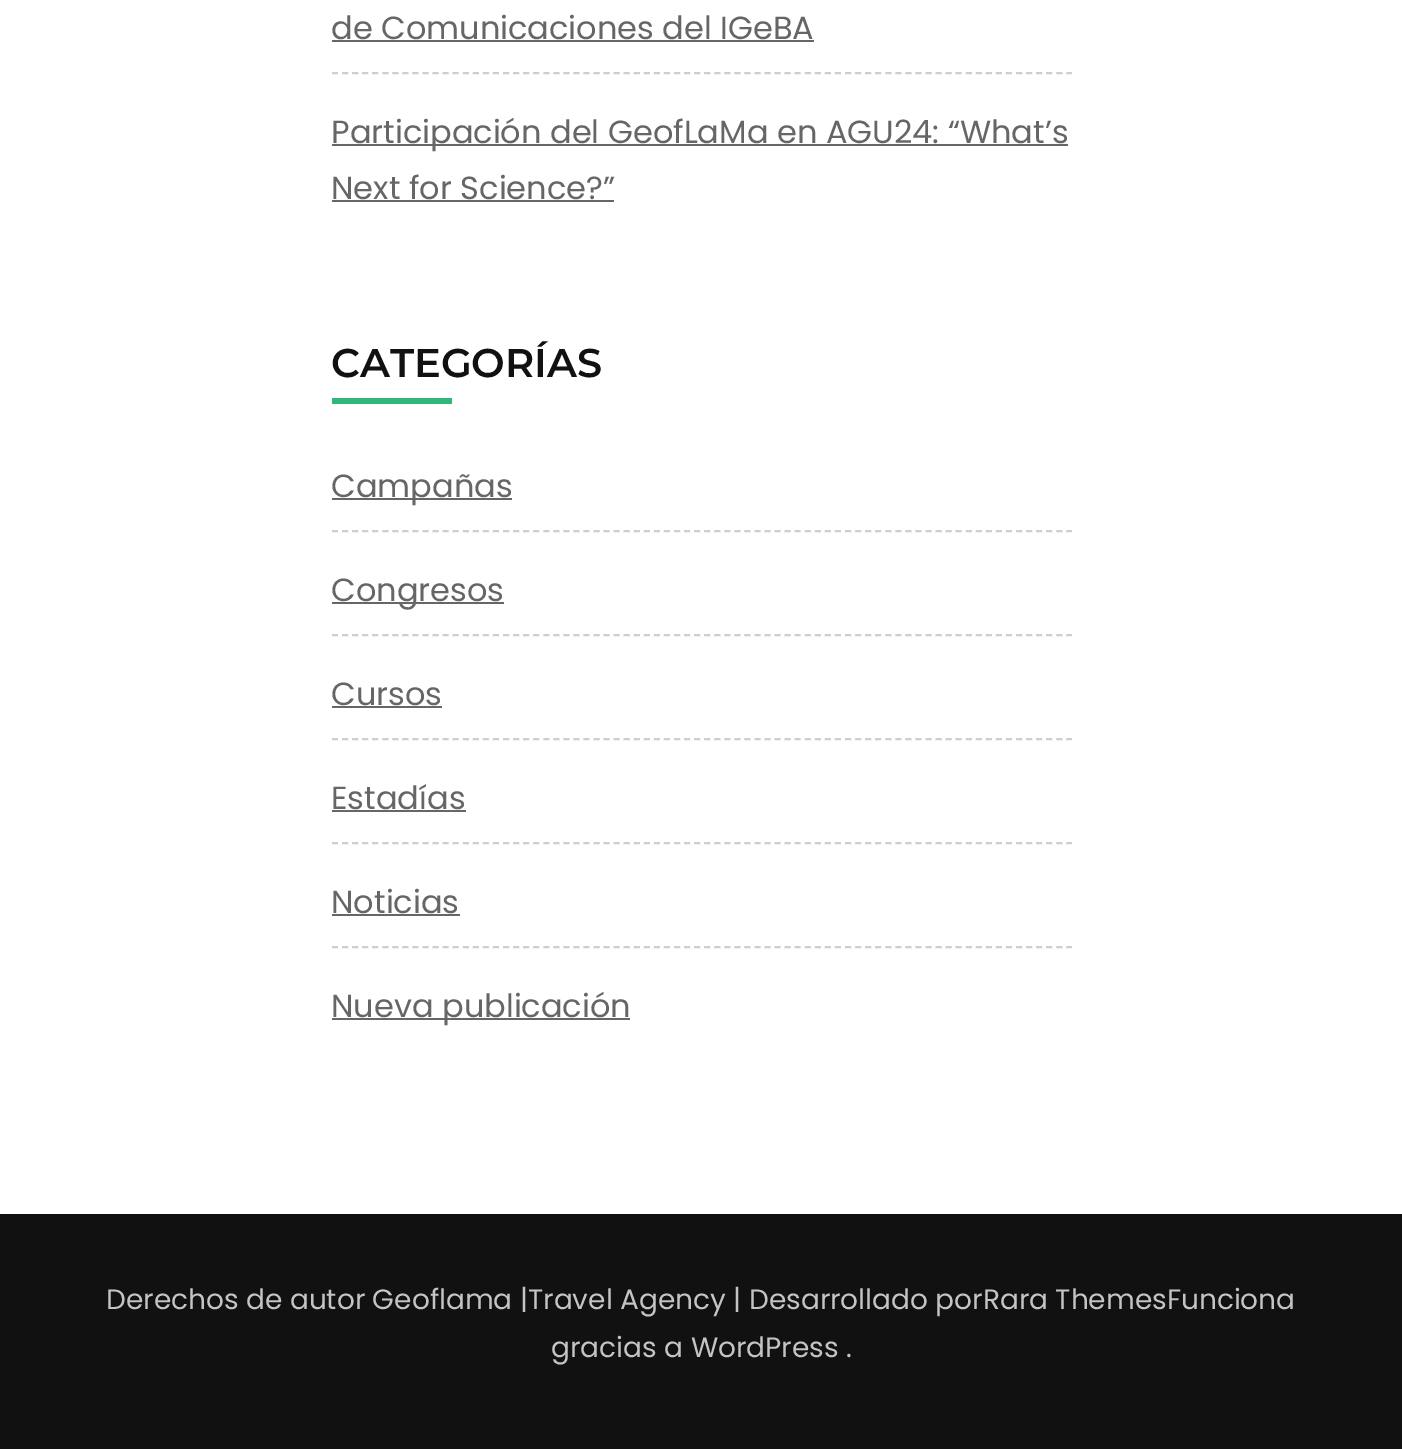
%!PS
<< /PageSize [1402 1449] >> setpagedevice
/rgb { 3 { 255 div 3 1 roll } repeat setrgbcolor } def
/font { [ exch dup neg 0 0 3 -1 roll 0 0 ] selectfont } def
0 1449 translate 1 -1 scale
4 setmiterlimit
255 255 255 rgb
0 0 1402 1449 rectfill
206 206 206 rgb
2 setlinewidth
[6 4.06] 0 setdash
332 73 moveto 1072 73 lineto stroke
[
  [332 40 482 2 102 102 102]
  [332 144 736 2 102 102 102]
  [332 200 282 2 102 102 102]
  [332 398 120 6 50 182 122]
] { aload pop rgb rectfill } forall
206 206 206 rgb
332 531 moveto 1072 531 lineto stroke
102 102 102 rgb
332 498 180 2 rectfill
206 206 206 rgb
332 635 moveto 1072 635 lineto stroke
102 102 102 rgb
332 602 172 2 rectfill
206 206 206 rgb
332 739 moveto 1072 739 lineto stroke
102 102 102 rgb
332 706 110 2 rectfill
206 206 206 rgb
332 843 moveto 1072 843 lineto stroke
102 102 102 rgb
332 810 134 2 rectfill
206 206 206 rgb
332 947 moveto 1072 947 lineto stroke
[
  [332 914 128 2 102 102 102]
  [332 1018 298 2 102 102 102]
  [0 1214 1402 235 17 17 17]
] { aload pop rgb rectfill } forall
/Poppins-Regular 32 font
102 102 102 rgb
[
  [(de Comunicaciones del IGeBA) 331 39]
  [(Participación del GeofLaMa en AGU24: “What’s) 331 143]
  [(Next for Science?”) 331 199]
] { aload pop moveto show } forall
/Montserrat-SemiBold 40 font
17 17 17 rgb
331 377 moveto (CATEGORÍAS) show
/Poppins-Regular 32 font
102 102 102 rgb
[
  [(Campañas) 331 497]
  [(Congresos) 331 601]
  [(Cursos) 331 705]
  [(Estadías) 331 809]
  [(Noticias) 331 913]
  [(Nueva publicación) 331 1017]
] { aload pop moveto show } forall
/Poppins-Regular 28 font
196 196 196 rgb
106 1309 moveto (Derechos de autor Geoflama |Travel Agency | Desarrollado porRara ThemesFunciona) show
551 1357 moveto (gracias a WordPress .) show
showpage
